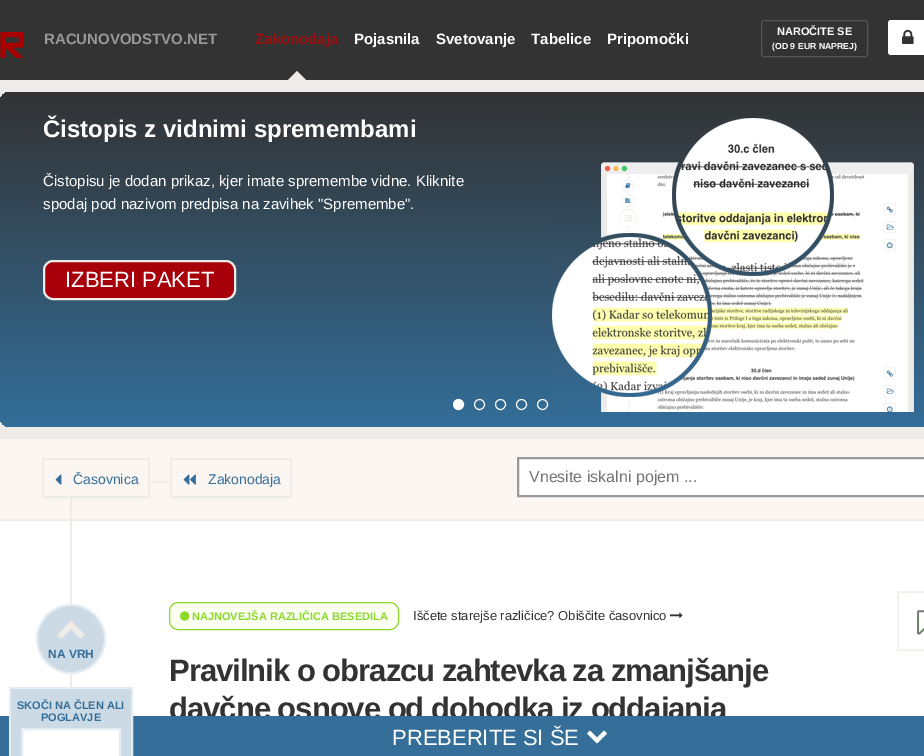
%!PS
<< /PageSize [924 756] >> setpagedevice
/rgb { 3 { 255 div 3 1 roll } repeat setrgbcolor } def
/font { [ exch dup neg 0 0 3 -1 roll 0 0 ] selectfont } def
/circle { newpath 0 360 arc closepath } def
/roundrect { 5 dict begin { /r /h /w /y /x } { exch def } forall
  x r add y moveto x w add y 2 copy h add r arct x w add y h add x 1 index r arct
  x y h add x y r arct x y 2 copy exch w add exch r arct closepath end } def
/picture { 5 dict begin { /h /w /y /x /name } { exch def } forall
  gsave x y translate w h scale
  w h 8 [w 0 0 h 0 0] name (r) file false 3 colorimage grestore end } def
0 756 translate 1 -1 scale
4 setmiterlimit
237 236 232 rgb
0 0 924 756 rectfill
51 51 51 rgb
0 0 924 80 rectfill
(img/1.rgb) 0 32 24 26 picture
(img/2.rgb) 288 71 18 9 picture
85 85 85 rgb
761.5 20.5 106 36 2.5 roundrect stroke
255 255 255 rgb
888 20 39 35 3 roundrect fill
(img/3.rgb) 902 29 12 15 picture
gsave 0 92 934 335 10 roundrect clip newpath
<< /ShadingType 2 /ColorSpace /DeviceRGB /Coords [500 92 500 427] /Extend [true true] /Function << /FunctionType 2 /Domain [0 1] /C0 [0.2 0.2 0.2] /C1 [0.204 0.431 0.6] /N 1 >> >> shfill grestore
167 0 11 rgb
44 261 191 38 9 roundrect gsave fill grestore
237 236 232 rgb
2 setlinewidth
stroke
(img/4.rgb) 552 118 362 294 picture
255 255 255 rgb
458.5 404.5 5 circle gsave fill grestore
1 setlinewidth
stroke
250 250 247 rgb
479.5 404.5 5 circle stroke
500.5 404.5 5 circle stroke
521.5 404.5 5 circle stroke
542.5 404.5 5 circle stroke
[
  [0 439 924 80 252 246 242]
  [150 481 20 2 237 236 232]
  [70 498 2 21 237 236 232]
] { aload pop rgb rectfill } forall
2 setlinewidth
43 459 106 38 rectstroke
(img/5.rgb) 55 474 7 11 picture
171 459 120 38 rectstroke
(img/6.rgb) 183 474 13 11 picture
255 255 255 rgb
518 458 moveto 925 458 lineto 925 496 lineto 518 496 lineto closepath gsave fill grestore
153 153 153 rgb
stroke
255 255 255 rgb
0 521 924 195 rectfill
237 236 232 rgb
70 521 2 166 rectfill
250 255 242 rgb
169.5 602.5 229 27 8.5 roundrect gsave fill grestore
141 216 43 rgb
1 setlinewidth
stroke
(img/7.rgb) 180 611 10 10 picture
(img/8.rgb) 670 612 13 7 picture
238 243 238 rgb
2 setlinewidth
898 592 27 58 rectstroke
(img/9.rgb) 917 610 7 25 picture
204 218 229 rgb
71 639 34 circle gsave fill grestore
229 237 242 rgb
stroke
(img/10.rgb) 57 621 28 18 picture
/LiberationSans-Bold 15 font
153 153 153 rgb
44 44 moveto (RACUNOVODSTVO.NET) show
157 16 16 rgb
255 44 moveto (Zakonodaja) show
255 255 255 rgb
[
  [(Pojasnila) 354 44]
  [(Svetovanje) 436 44]
  [(Tabelice) 531 44]
  [(Pripomočki) 607 44]
] { aload pop moveto show } forall
/LiberationSans-Bold 11 font
777 35 moveto (NAROČITE SE) show
/LiberationSans-Bold 8.75 font
772 49 moveto (\(OD 9 EUR NAPREJ\)) show
/LiberationSans-Bold 24 font
43 137 moveto (Čistopis z vidnimi spremembami) show
/LiberationSans-Regular 15 font
43 186 moveto (Čistopisu je dodan prikaz, kjer imate spremembe vidne. Kliknite) show
43 209 moveto (spodaj pod nazivom predpisa na zavihek "Spremembe".) show
/LiberationSans-Regular 22 font
65 287 moveto (IZBERI PAKET) show
/LiberationSans-Regular 14 font
52 110 153 rgb
73 484 moveto (Časovnica) show
208 484 moveto (Zakonodaja) show
/LiberationSans-Regular 16 font
117 117 117 rgb
529 482 moveto (Vnesite iskalni pojem ...) show
/LiberationSans-Bold 11 font
141 216 43 rgb
192 620 moveto (NAJNOVEJŠA RAZLIČICA BESEDILA) show
/LiberationSans-Regular 13 font
51 51 51 rgb
413 620 moveto (Iščete starejše različice? Obiščite časovnico) show
/LiberationSans-Bold 12 font
52 110 153 rgb
48 658 moveto (NA VRH) show
/LiberationSans-Bold 31 font
51 51 51 rgb
169 681 moveto -1 0 (Pravilnik o obrazcu zahtevka za zmanjšanje) ashow
169 719 moveto -1 0 (davčne osnove od dohodka iz oddajanja) ashow
52 110 153 rgb
0 716 924 40 rectfill
229 237 242 rgb
10 688 122 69 rectstroke
204 218 229 rgb
11 689 120 67 rectfill
255 255 255 rgb
22 729 moveto 120 729 lineto 120 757 lineto 22 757 lineto closepath gsave fill grestore
229 237 242 rgb
stroke
/LiberationSans-Bold 11 font
52 110 153 rgb
41 721 moveto (POGLAVJE) show
17 709 moveto (SKOČI NA ČLEN ALI) show
/LiberationSans-Regular 22 font
255 255 255 rgb
392 745 moveto (PREBERITE SI ŠE) show
(img/11.rgb) 587 730 20 14 picture
showpage
